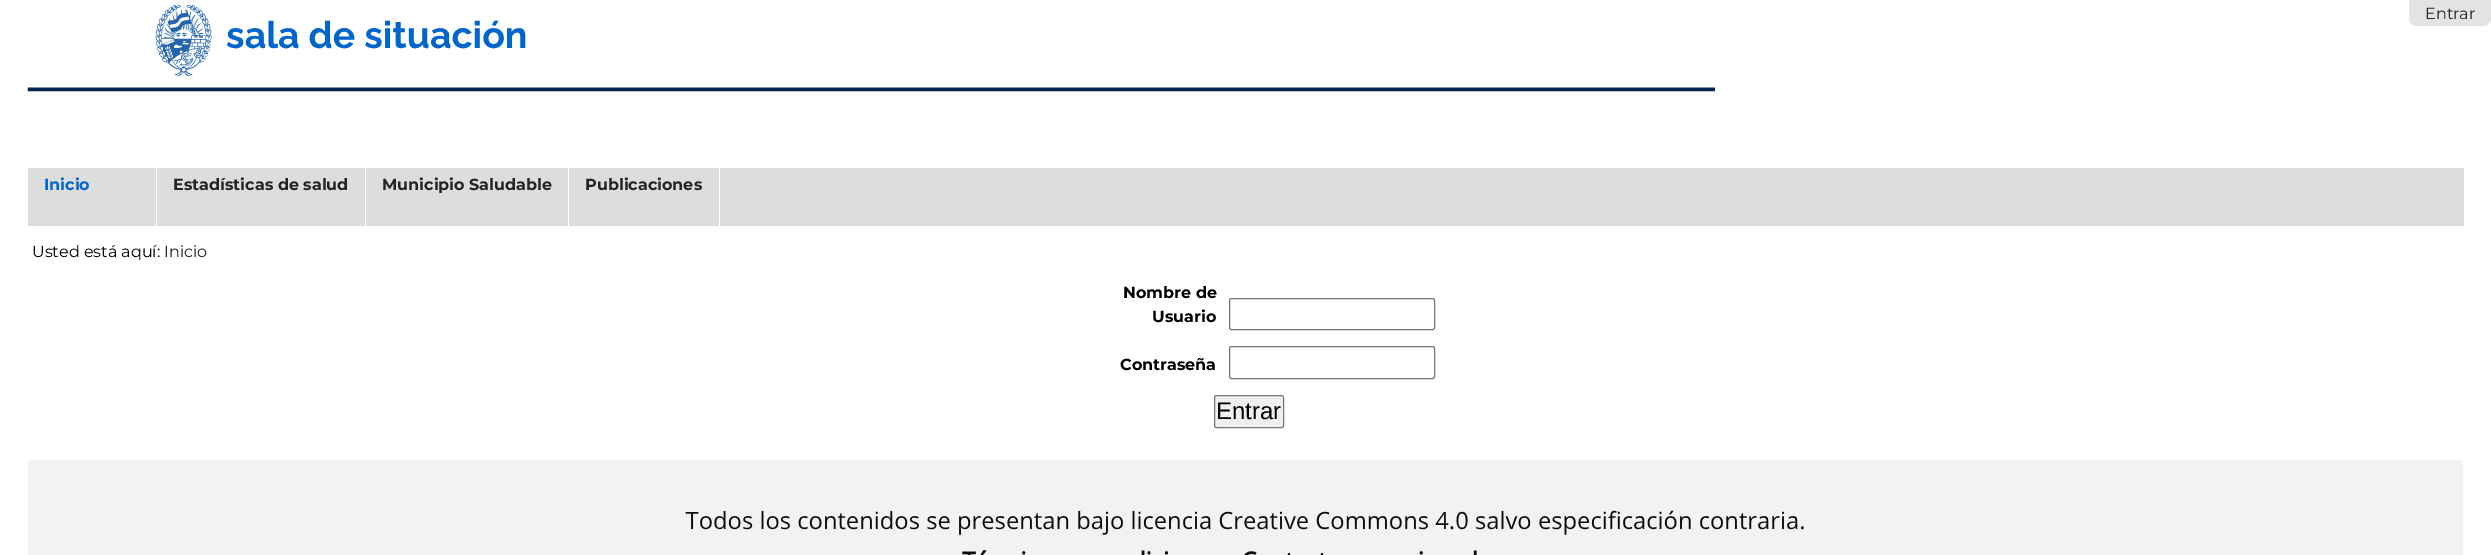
%!PS
<< /PageSize [2491 555] >> setpagedevice
/rgb { 3 { 255 div 3 1 roll } repeat setrgbcolor } def
/font { [ exch dup neg 0 0 3 -1 roll 0 0 ] selectfont } def
/roundrect { 5 dict begin { /r /h /w /y /x } { exch def } forall
  x r add y moveto x w add y 2 copy h add r arct x w add y h add x 1 index r arct
  x y h add x y r arct x y 2 copy exch w add exch r arct closepath end } def
/picture { 5 dict begin { /h /w /y /x /name } { exch def } forall
  gsave x y translate w h scale
  w h 8 [w 0 0 h 0 0] name (r) file false 3 colorimage grestore end } def
0 555 translate 1 -1 scale
4 setmiterlimit
255 255 255 rgb
0 0 2491 555 rectfill
(img/1.rgb) 27 5 1688 87 picture
227 227 227 rgb
2409 0 moveto 2491 0 lineto 2491 18 lineto 2491 22.5 2487.5 26 2483 26 curveto 2417 26 lineto 2412.5 26 2409 22.5 2409 18 curveto closepath fill
[
  [28 168 2436 58 221 221 221]
  [156 168 1 58 255 255 255]
  [365 168 1 58 255 255 255]
  [568 168 1 58 255 255 255]
  [719 168 1 58 255 255 255]
] { aload pop rgb rectfill } forall
118 118 118 rgb
1229.5 298.5 205 31 2 roundrect stroke
1229.5 346.5 205 32 2 roundrect stroke
239 239 239 rgb
1214.5 395.5 69 32 2 roundrect gsave fill grestore
118 118 118 rgb
stroke
(img/2.rgb) 28 460 2435 95 picture
/Montserrat-Regular 16 font
36 36 36 rgb
2425 19 moveto (Entrar) show
/Montserrat-Bold 16 font
0 102 204 rgb
44 190 moveto (Inicio) show
36 36 36 rgb
[
  [(Estadísticas de salud) 173 190]
  [(Municipio Saludable) 382 190]
  [(Publicaciones) 585 190]
] { aload pop moveto show } forall
/Montserrat-Regular 16 font
0 0 0 rgb
32 257 moveto (Usted está aquí:) show
36 36 36 rgb
164 257 moveto (Inicio) show
/Montserrat-Bold 16 font
0 0 0 rgb
[
  [(Nombre de) 1123 298]
  [(Usuario) 1152 322]
  [(Contraseña) 1120 370]
] { aload pop moveto show } forall
/LiberationSans-Regular 24 font
1216 419 moveto (Entrar) show
showpage
